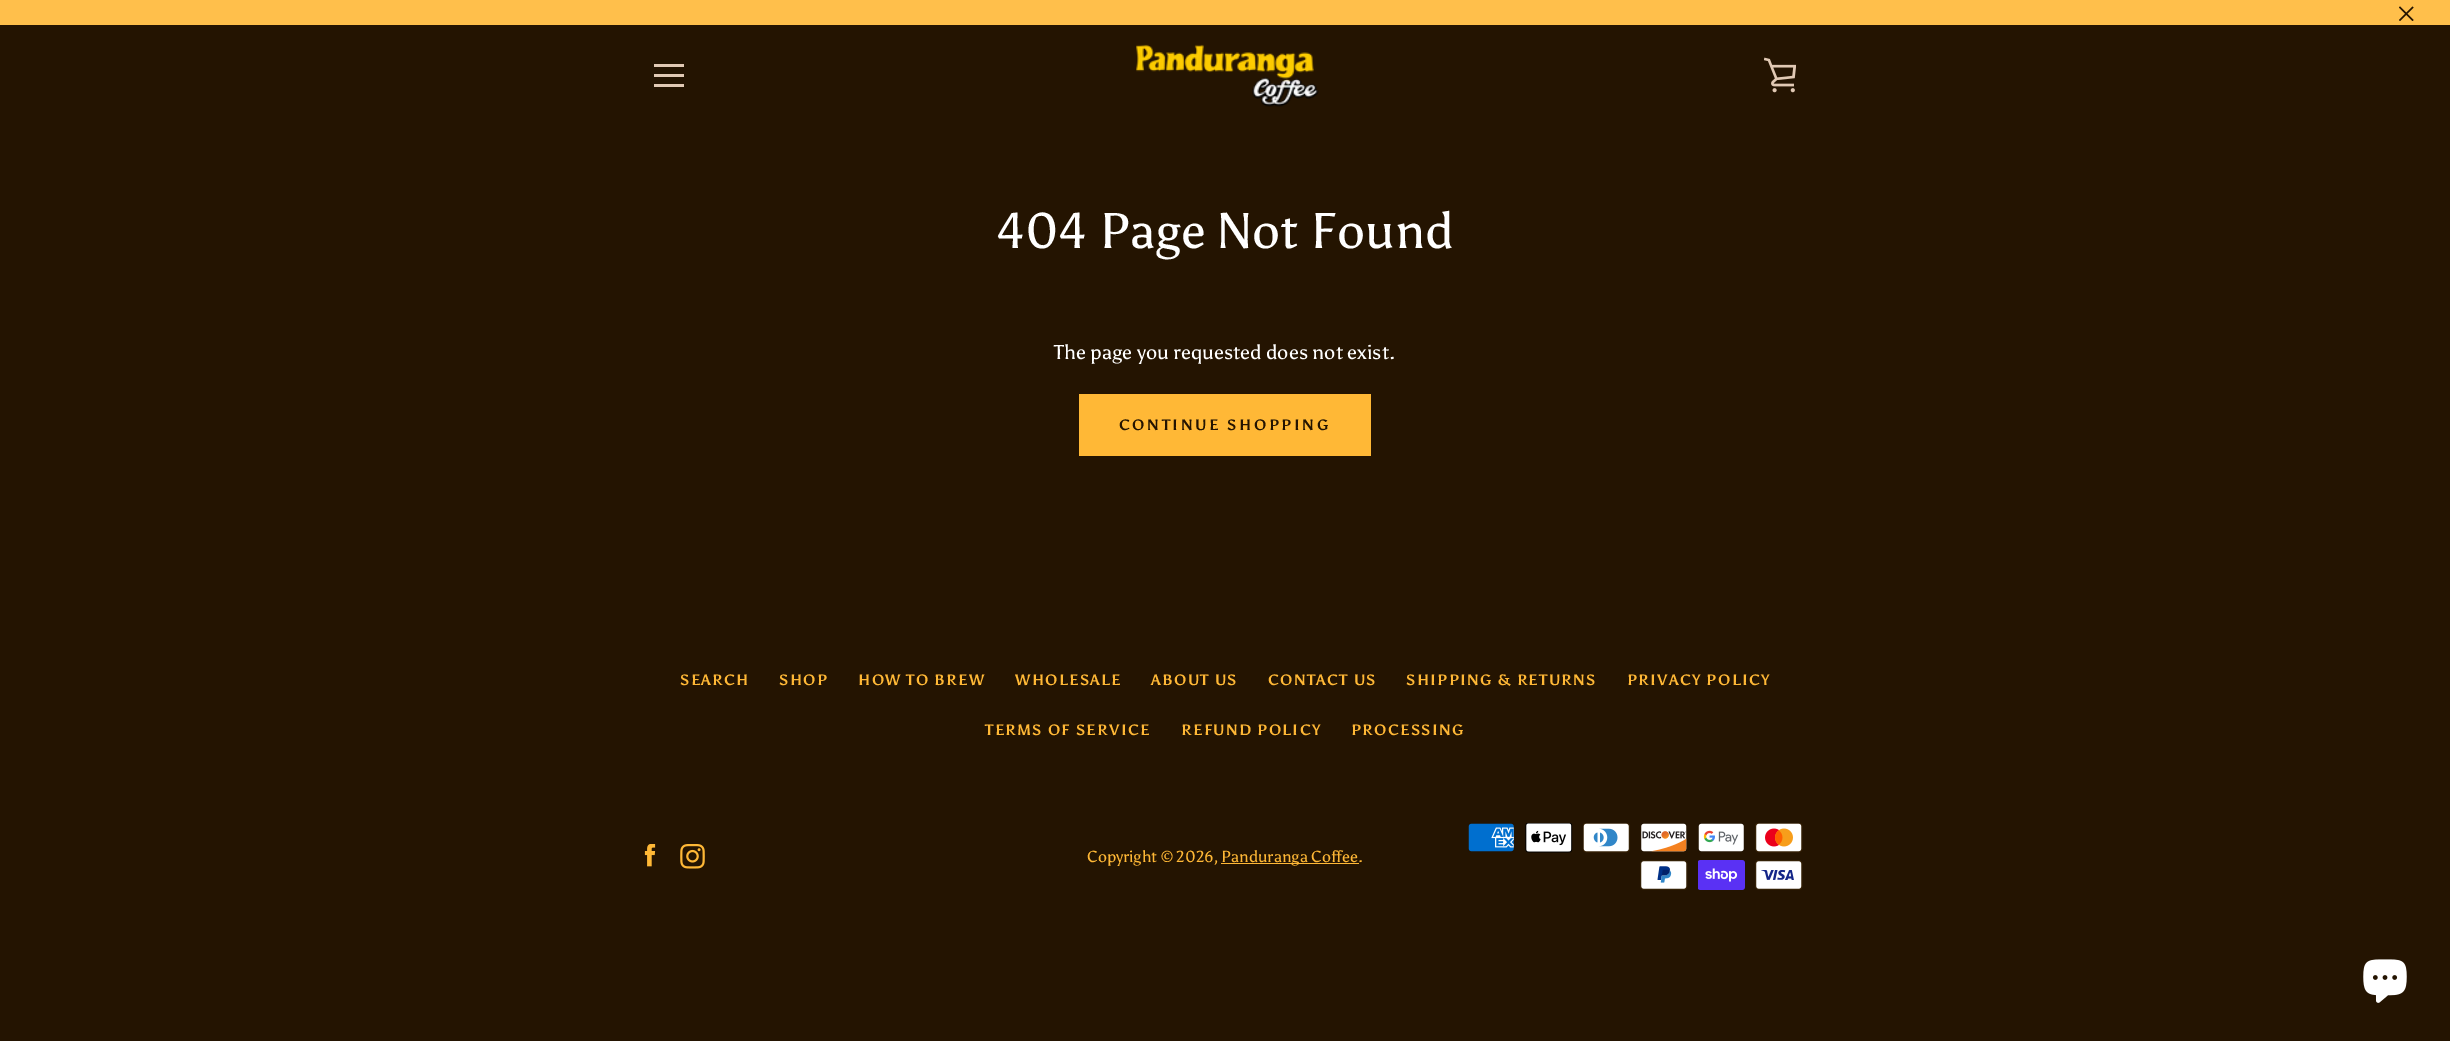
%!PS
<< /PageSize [2450 1041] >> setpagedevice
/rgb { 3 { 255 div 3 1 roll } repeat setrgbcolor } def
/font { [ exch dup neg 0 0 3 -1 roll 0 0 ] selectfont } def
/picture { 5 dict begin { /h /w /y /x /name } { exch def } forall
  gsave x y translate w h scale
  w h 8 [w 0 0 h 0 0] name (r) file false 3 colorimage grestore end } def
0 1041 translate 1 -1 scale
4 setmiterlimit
36 20 1 rgb
0 0 2450 1041 rectfill
255 191 75 rgb
0 0 2450 25 rectfill
(img/1.rgb) 2399 6 15 15 picture
[
  [654 64 30 3 225 201 180]
  [654 74 30 3 225 201 180]
  [654 84 30 3 225 201 180]
] { aload pop rgb rectfill } forall
(img/2.rgb) 1136 44 183 63 picture
(img/3.rgb) 1764 57 32 36 picture
255 184 54 rgb
1079 394 292 62 rectfill
(img/4.rgb) 644 844 12 23 picture
(img/5.rgb) 680 844 25 25 picture
1221 863 138 1 rectfill
(img/6.rgb) 1468 823 46 29 picture
(img/7.rgb) 1525 823 48 30 picture
(img/8.rgb) 1583 823 47 30 picture
(img/9.rgb) 1641 823 46 29 picture
(img/10.rgb) 1698 823 46 29 picture
(img/11.rgb) 1755 823 48 30 picture
(img/12.rgb) 1640 860 48 30 picture
(img/13.rgb) 1698 860 47 30 picture
(img/14.rgb) 1755 860 48 30 picture
(img/15.rgb) 2363 959 44 44 picture
/Asul-Regular 50 font
255 255 255 rgb
997 248 moveto (404 Page Not Found) show
/Asul-Regular 20 font
1054 359 moveto (The page you requested does not exist.) show
/Asul-Bold 15 font
36 20 1 rgb
1119 430 moveto 2.5 0 (CONTINUE SHOPPING) ashow
255 184 54 rgb
680 685 moveto 1.25 0 (SEARCH) ashow
779 685 moveto 1.25 0 (SHOP) ashow
858 685 moveto 1.25 0 (HOW TO BREW) ashow
1015 685 moveto 1.25 0 (WHOLESALE) ashow
1151 685 moveto 1.25 0 (ABOUT US) ashow
1268 685 moveto 1.25 0 (CONTACT US) ashow
1406 685 moveto 1.25 0 (SHIPPING & RETURNS) ashow
1627 685 moveto 1.25 0 (PRIVACY POLICY) ashow
985 735 moveto 1.25 0 (TERMS OF SERVICE) ashow
1181 735 moveto 1.25 0 (REFUND POLICY) ashow
1351 735 moveto 1.25 0 (PROCESSING) ashow
/Asul-Regular 16 font
1087 862 moveto (Copyright © 2026,) show
1221 862 moveto (Panduranga Coffee.) show
showpage
